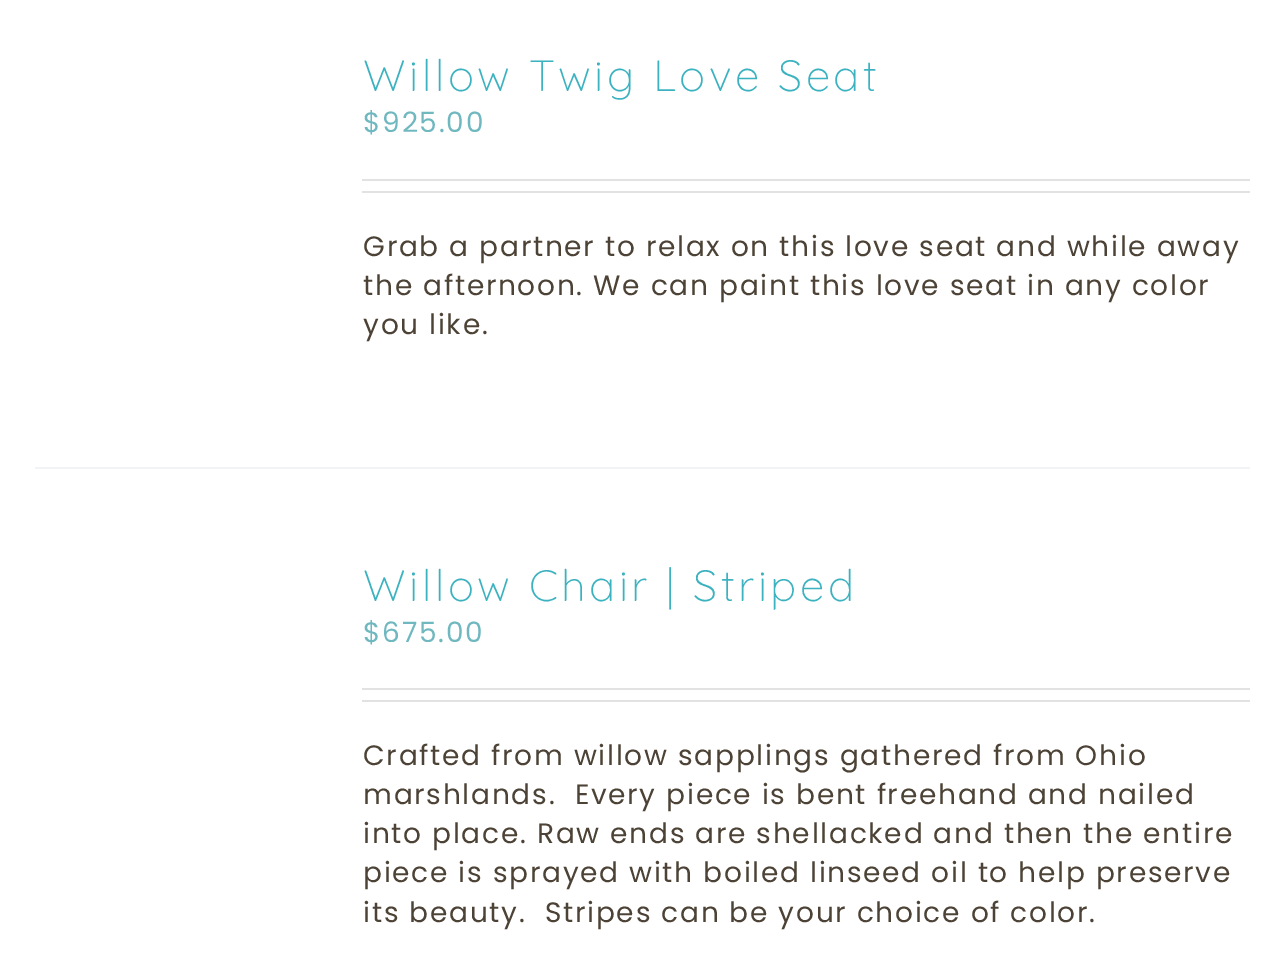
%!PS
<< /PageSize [1284 954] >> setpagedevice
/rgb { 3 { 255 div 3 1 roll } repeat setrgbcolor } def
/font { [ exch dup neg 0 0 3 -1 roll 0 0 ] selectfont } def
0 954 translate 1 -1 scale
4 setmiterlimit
255 255 255 rgb
0 0 1284 954 rectfill
[
  [35 467 1215 2 242 243 245]
  [362 179 888 2 226 226 226]
  [362 191 888 2 226 226 226]
  [362 688 888 2 226 226 226]
  [362 700 888 2 226 226 226]
] { aload pop rgb rectfill } forall
/Quicksand-Light 43.75 font
59 178 191 rgb
363 91 moveto 3.5 0 (Willow Twig Love Seat) ashow
/Poppins-Regular 28 font
112 184 192 rgb
363 132 moveto 1.75 0 ($925.00) ashow
76 66 54 rgb
363 256 moveto 1.75 0 (Grab a partner to relax on this love seat and while away) ashow
363 295 moveto 1.75 0 (the afternoon. We can paint this love seat in any color) ashow
363 334 moveto 1.75 0 (you like.) ashow
/Quicksand-Light 43.75 font
59 178 191 rgb
363 601 moveto 3.5 0 (Willow Chair | Striped) ashow
/Poppins-Regular 28 font
112 184 192 rgb
363 642 moveto 1.75 0 ($675.00) ashow
76 66 54 rgb
363 765 moveto 1.75 0 (Crafted from willow sapplings gathered from Ohio) ashow
363 804 moveto 1.75 0 (marshlands.  Every piece is bent freehand and nailed) ashow
363 843 moveto 1.75 0 (into place. Raw ends are shellacked and then the entire) ashow
363 882 moveto 1.75 0 (piece is sprayed with boiled linseed oil to help preserve) ashow
363 922 moveto 1.75 0 (its beauty.  Stripes can be your choice of color.) ashow
showpage
